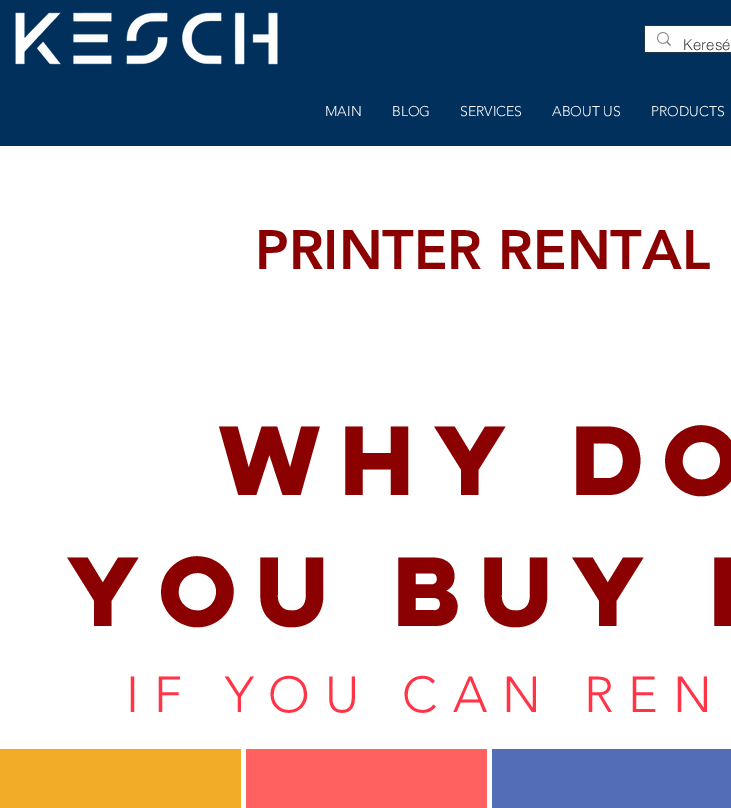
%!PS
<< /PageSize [731 808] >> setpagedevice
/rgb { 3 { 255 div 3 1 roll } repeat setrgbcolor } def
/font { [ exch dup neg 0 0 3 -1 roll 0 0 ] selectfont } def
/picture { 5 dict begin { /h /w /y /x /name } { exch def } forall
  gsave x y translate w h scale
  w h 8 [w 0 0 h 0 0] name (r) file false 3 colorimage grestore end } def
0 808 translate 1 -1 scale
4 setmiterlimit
255 255 255 rgb
0 0 731 808 rectfill
0 48 91 rgb
0 0 731 146 rectfill
(img/1.rgb) 15 12 263 53 picture
35 54 71 rgb
644.5 25.5 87 27 rectstroke
255 255 255 rgb
645 26 86 26 rectfill
(img/2.rgb) 657 32 14 14 picture
[
  [0 749 241 59 242 172 39]
  [246 749 241 59 255 97 97]
  [492 749 239 59 83 110 183]
] { aload pop rgb rectfill } forall
/helvetica-Light 15 font
59 58 58 rgb
683 50 moveto (Keresé) show
/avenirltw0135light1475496-Light 14 font
255 255 255 rgb
[
  [(MAIN) 325 116]
  [(BLOG) 392 116]
  [(SERVICES) 460 116]
  [(ABOUT US) 552 116]
  [(PRODUCTS) 651 116]
] { aload pop moveto show } forall
/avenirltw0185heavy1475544-Black 55 font
139 0 0 rgb
255 269 moveto (PRINTER RENTAL) show
/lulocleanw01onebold-Bold 88 font
219 495 moveto (WHY DO) show
67 626 moveto (YOU BUY I) show
/avenirltw0135light1475496-Light 50 font
255 52 71 rgb
126 712 moveto 15 0 (IF YOU CAN REN) ashow
showpage
